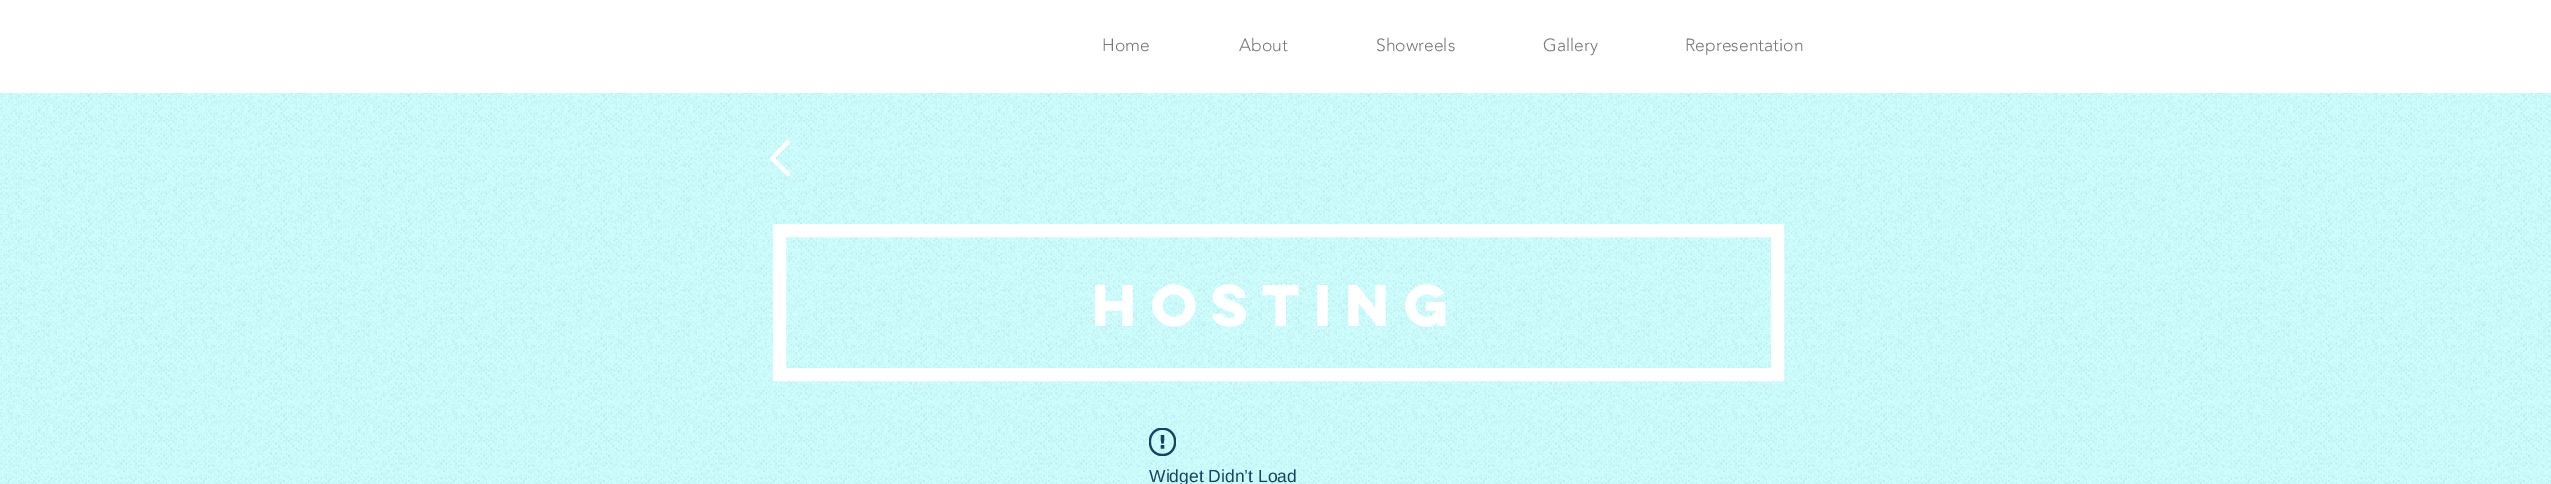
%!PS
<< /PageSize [2551 484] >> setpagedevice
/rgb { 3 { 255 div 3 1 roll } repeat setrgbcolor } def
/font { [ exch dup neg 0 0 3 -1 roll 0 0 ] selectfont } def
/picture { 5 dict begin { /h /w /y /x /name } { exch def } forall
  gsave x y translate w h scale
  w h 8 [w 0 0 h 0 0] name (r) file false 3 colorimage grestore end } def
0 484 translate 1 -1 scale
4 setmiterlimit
207 255 255 rgb
0 0 2551 484 rectfill
255 255 255 rgb
0 0 2551 93 rectfill
(img/3.rgb) 0 93 2551 391 picture
(img/1.rgb) 770 140 21 36 picture
13 setlinewidth
779.5 230.5 998 144 rectstroke
(img/2.rgb) 1149 428 27 28 picture
/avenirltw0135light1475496-Light 17.5 font
120 120 119 rgb
[
  [(Home) 1102 51]
  [(About) 1239 51]
  [(Showreels) 1376 51]
  [(Gallery) 1543 51]
  [(Representation) 1685 51]
] { aload pop moveto show } forall
/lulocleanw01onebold-Bold 52.5 font
255 255 255 rgb
1092 326 moveto 2.5 0 (Hosting) ashow
/LiberationSans-Regular 17.5 font
23 65 101 rgb
1149 482 moveto (Widget Didn’t Load) show
showpage
